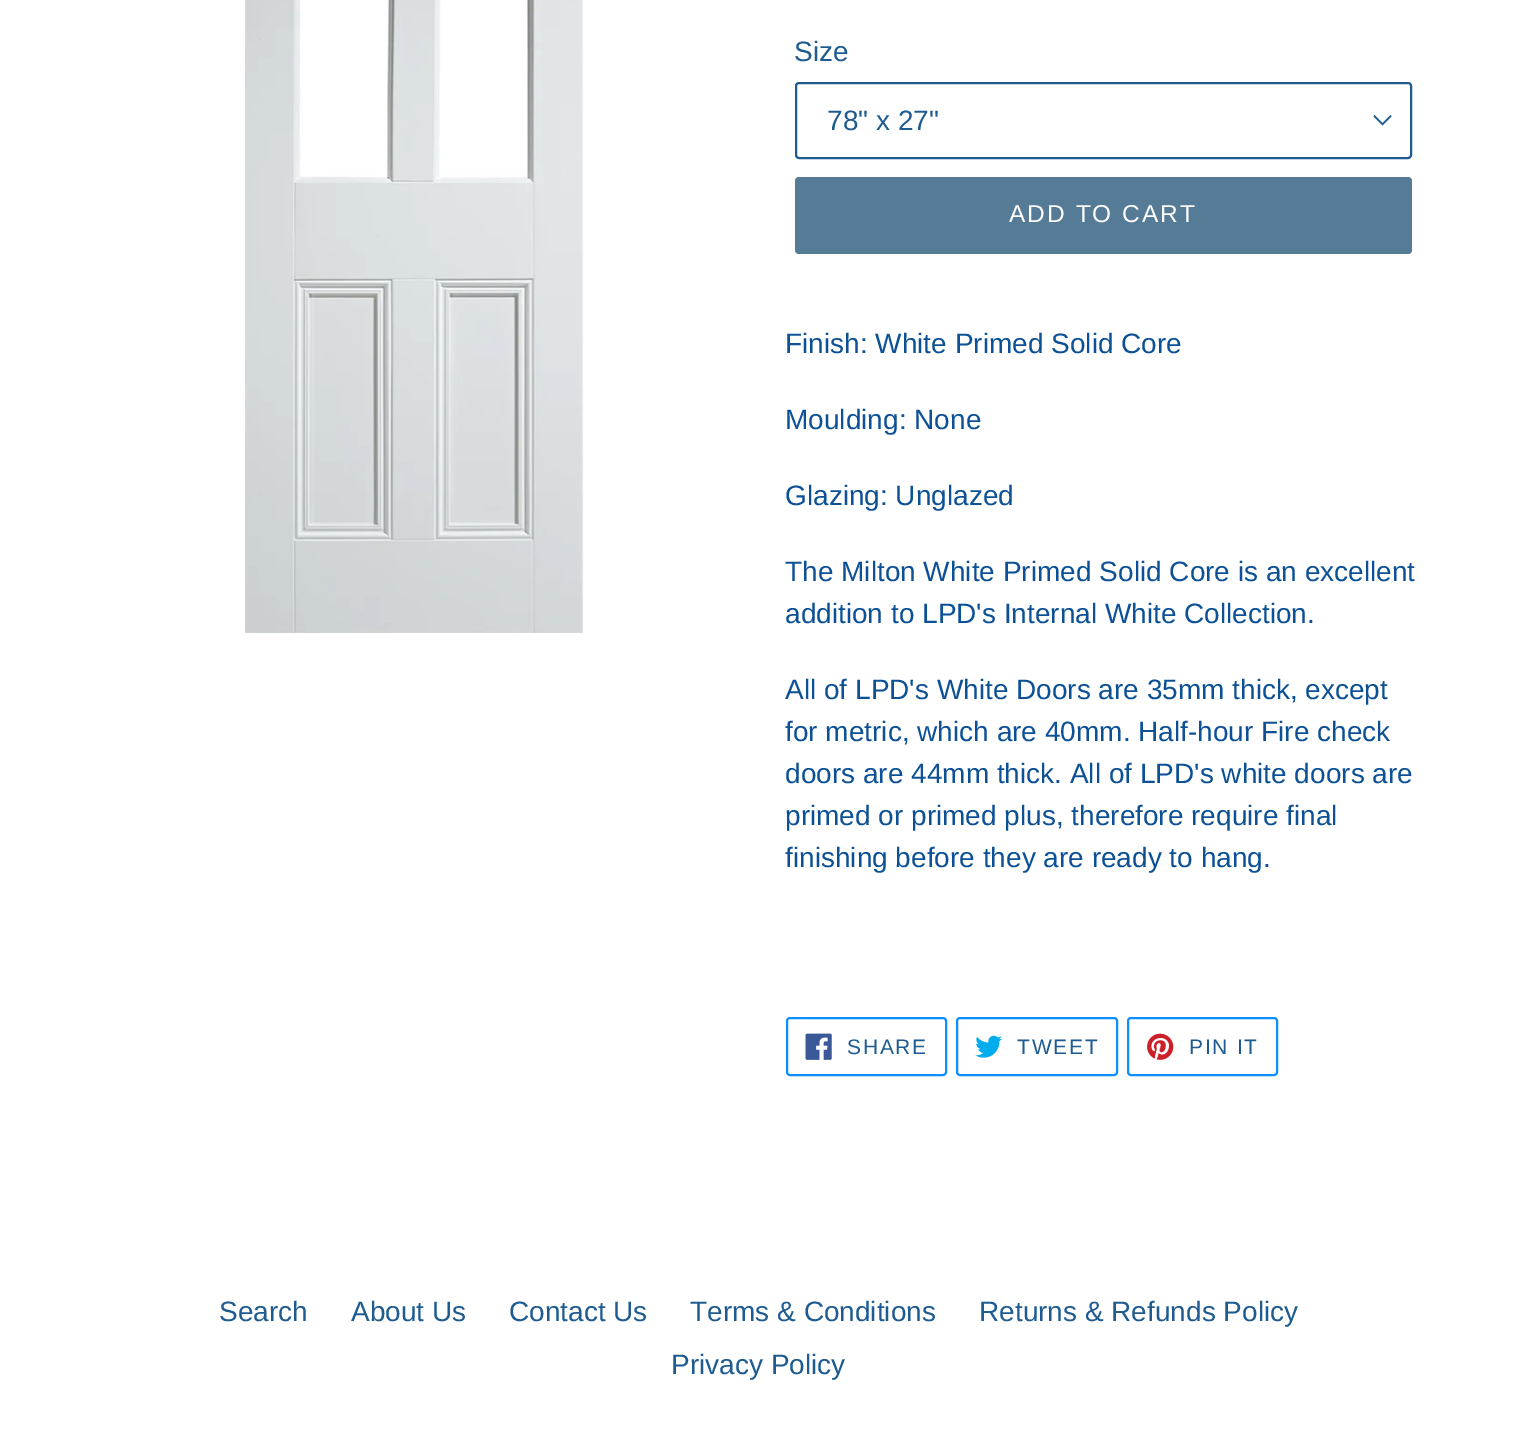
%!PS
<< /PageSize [1517 1435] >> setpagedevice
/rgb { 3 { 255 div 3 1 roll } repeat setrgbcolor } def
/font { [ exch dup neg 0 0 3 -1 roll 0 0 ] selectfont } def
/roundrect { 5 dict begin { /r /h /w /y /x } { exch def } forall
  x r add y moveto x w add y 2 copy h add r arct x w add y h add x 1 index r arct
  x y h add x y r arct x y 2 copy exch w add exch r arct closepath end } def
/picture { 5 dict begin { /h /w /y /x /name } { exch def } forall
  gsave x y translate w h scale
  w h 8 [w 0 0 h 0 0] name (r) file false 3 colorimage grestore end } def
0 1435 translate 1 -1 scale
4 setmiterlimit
255 255 255 rgb
0 0 1517 1435 rectfill
(img/1.rgb) 245 0 339 633 picture
30 91 144 rgb
1382.5 125.5 moveto 1373.5 116.5 lineto 1374.5 115 lineto 1382.5 123 lineto 1390.5 115 lineto 1391.5 116.5 lineto closepath fill
2 setlinewidth
796 83 615 75 3 roundrect stroke
85 123 151 rgb
795 177 617 77 4 roundrect fill
14 142 255 rgb
787 1018 159 57 3 roundrect stroke
(img/2.rgb) 805 1033 27 27 picture
957 1018 160 57 3 roundrect stroke
(img/3.rgb) 975 1035 27 23 picture
1128 1018 149 57 3 roundrect stroke
(img/4.rgb) 1147 1033 27 27 picture
/LiberationSans-Regular 28 font
30 91 144 rgb
794 61 moveto (Size) show
827 130 moveto (78" x 27") show
/LiberationSans-Regular 24.5 font
255 255 255 rgb
1009 222 moveto 2 0 (ADD TO CART) ashow
/LiberationSans-Regular 28 font
12 80 149 rgb
[
  [(Finish: White Primed Solid Core) 785 353]
  [(Moulding: None) 785 429]
  [(Glazing: Unglazed) 785 505]
  [(The Milton White Primed Solid Core is an excellent) 785 581]
  [(addition to LPD's Internal White Collection.) 785 623]
  [(All of LPD's White Doors are 35mm thick, except) 785 699]
  [(for metric, which are 40mm. Half-hour Fire check) 785 741]
  [(doors are 44mm thick. All of LPD's white doors are) 785 783]
  [(primed or primed plus, therefore require final) 785 825]
  [(finishing before they are ready to hang.) 785 867]
] { aload pop moveto show } forall
/LiberationSans-Regular 21 font
30 91 144 rgb
847 1054 moveto 1.75 0 (SHARE) ashow
1017 1054 moveto 1.75 0 (TWEET) ashow
1189 1054 moveto 1.75 0 (PIN IT) ashow
/LiberationSans-Regular 28 font
[
  [(Search) 219 1321]
  [(About Us) 351 1321]
  [(Contact Us) 509 1321]
  [(Terms & Conditions) 690 1321]
  [(Returns & Refunds Policy) 979 1321]
  [(Privacy Policy) 671 1374]
] { aload pop moveto show } forall
showpage
